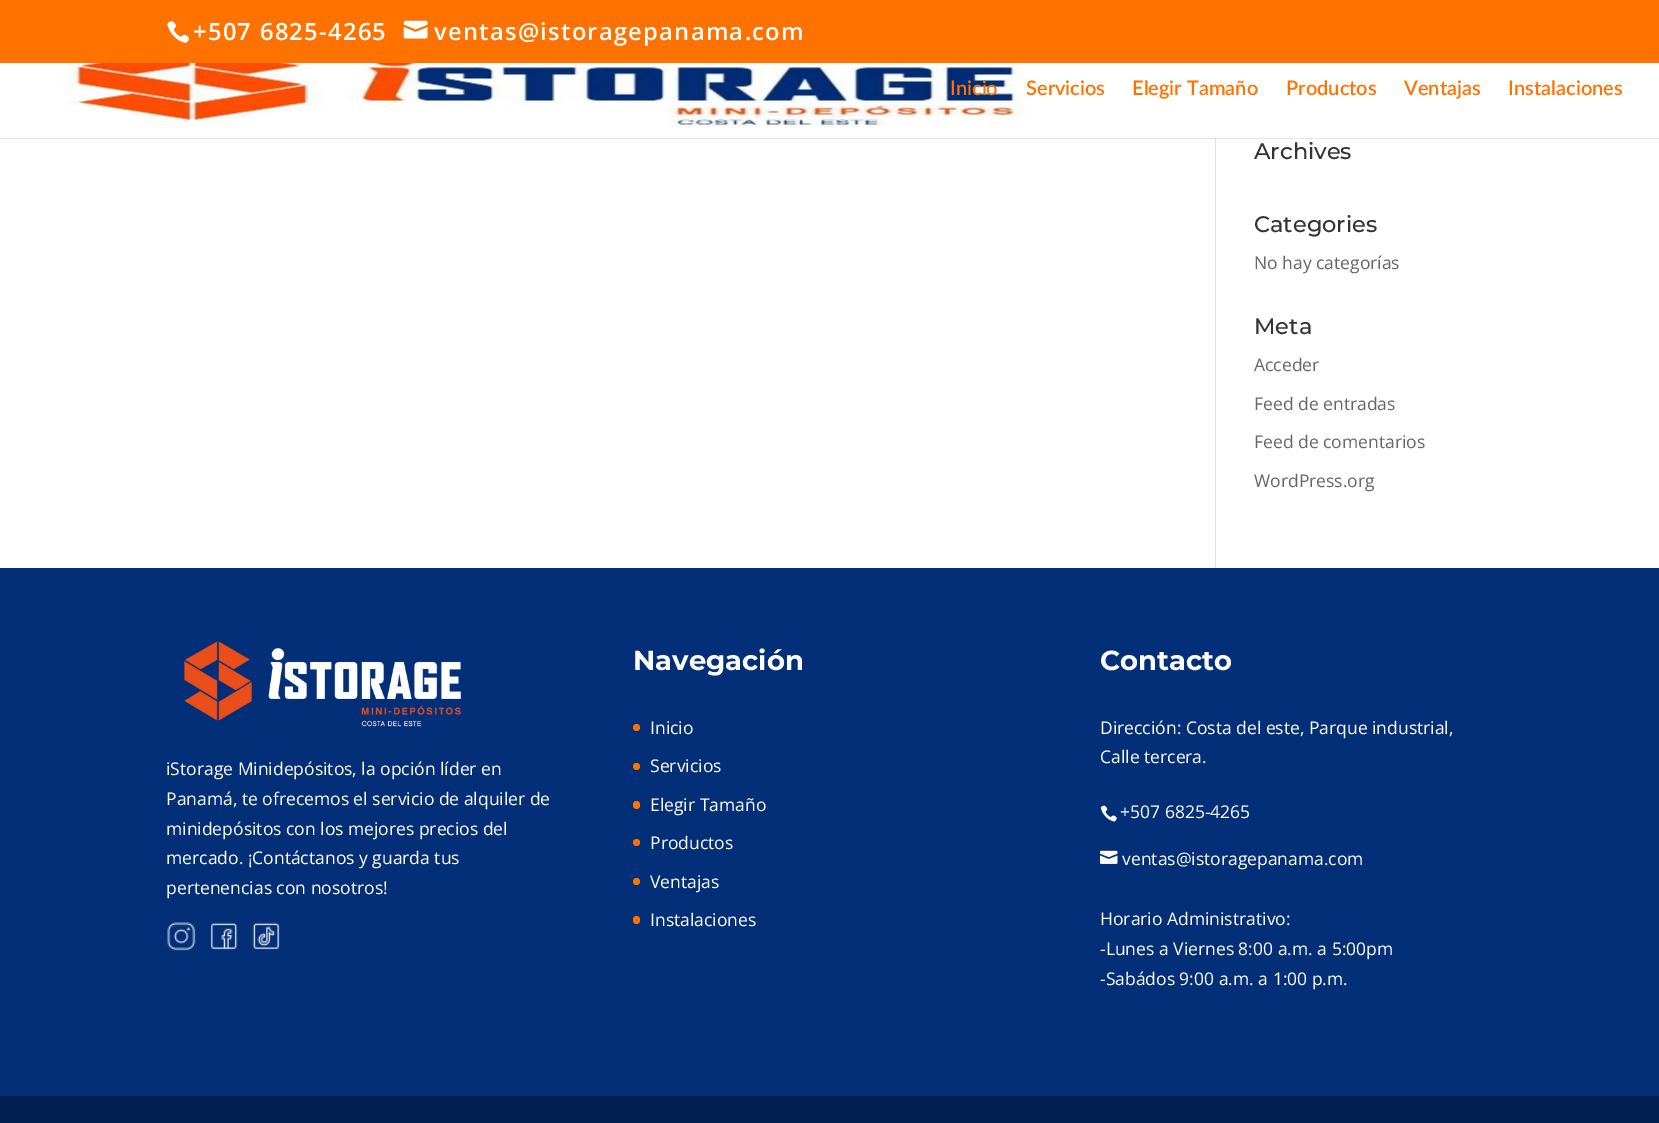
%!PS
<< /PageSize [1659 1123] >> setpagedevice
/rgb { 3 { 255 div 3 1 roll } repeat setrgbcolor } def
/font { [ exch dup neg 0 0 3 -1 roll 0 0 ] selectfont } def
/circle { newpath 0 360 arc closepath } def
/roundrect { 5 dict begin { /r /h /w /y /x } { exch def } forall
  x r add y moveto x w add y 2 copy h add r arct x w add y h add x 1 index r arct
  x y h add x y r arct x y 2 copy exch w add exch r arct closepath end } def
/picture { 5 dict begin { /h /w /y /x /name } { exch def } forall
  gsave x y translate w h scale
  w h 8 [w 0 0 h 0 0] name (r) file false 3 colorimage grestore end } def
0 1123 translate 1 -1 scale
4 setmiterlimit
255 255 255 rgb
0 0 1659 1123 rectfill
230 230 230 rgb
0 138 1659 1 rectfill
255 114 0 rgb
0 0 1659 63 rectfill
(img/1.rgb) 167 21 22 22 picture
(img/2.rgb) 403 20 25 19 picture
(img/3.rgb) 62 63 963 64 picture
[
  [1215 139 1 429 226 226 226]
  [1215 138 1 1 203 203 203]
  [0 568 1659 528 3 47 120]
] { aload pop rgb rectfill } forall
(img/4.rgb) 184 641 277 86 picture
(img/5.rgb) 167 922 29 29 picture
(img/6.rgb) 210 922 28 28 picture
(img/7.rgb) 252 922 28 28 picture
255 114 0 rgb
636.5 727.5 3.5 circle fill
636.5 766.5 3.5 circle fill
633 801 7 8 3.5 roundrect fill
636.5 842.5 3.5 circle fill
636.5 881.5 3.5 circle fill
633 916 7 8 3.5 roundrect fill
(img/8.rgb) 1100 805 17 17 picture
(img/9.rgb) 1100 850 18 14 picture
2 32 82 rgb
0 1096 1659 27 rectfill
/OpenSans-SemiBold 23.75 font
255 255 255 rgb
193 40 moveto 1.25 0 (+507 6825-4265) ashow
434 40 moveto 1.25 0 (ventas@istoragepanama.com) ashow
/Lato-SemiBold 20 font
255 114 0 rgb
[
  [(Inicio) 950 95]
  [(Servicios) 1026 95]
  [(Elegir Tamaño) 1132 95]
  [(Productos) 1286 95]
  [(Ventajas) 1404 95]
  [(Instalaciones) 1508 95]
] { aload pop moveto show } forall
/Montserrat-Medium 22.5 font
51 51 51 rgb
1254 159 moveto (Archives) show
1254 232 moveto (Categories) show
/OpenSans-Regular 17.5 font
102 102 102 rgb
1254 269 moveto (No hay categorías) show
/Montserrat-Medium 22.5 font
51 51 51 rgb
1254 334 moveto (Meta) show
/OpenSans-Regular 17.5 font
102 102 102 rgb
[
  [(Acceder) 1254 371]
  [(Feed de entradas) 1254 410]
  [(Feed de comentarios) 1254 448]
  [(WordPress.org) 1254 487]
] { aload pop moveto show } forall
255 255 255 rgb
[
  [(iStorage Minidepósitos, la opción líder en) 166 775]
  [(Panamá, te ofrecemos el servicio de alquiler de) 166 805]
  [(minidepósitos con los mejores precios del) 166 835]
  [(mercado. ¡Contáctanos y guarda tus) 166 864]
  [(pertenencias con nosotros!) 166 894]
] { aload pop moveto show } forall
/Montserrat-Bold 27.5 font
633 670 moveto (Navegación) show
/OpenSans-Regular 17.5 font
[
  [(Inicio) 650 734]
  [(Servicios) 650 772]
  [(Elegir Tamaño) 650 811]
  [(Productos) 650 849]
  [(Ventajas) 650 888]
  [(Instalaciones) 650 926]
] { aload pop moveto show } forall
/Montserrat-Bold 27.5 font
1100 670 moveto (Contacto) show
/OpenSans-Regular 17.5 font
[
  [(Dirección: Costa del este, Parque industrial,) 1100 734]
  [(Calle tercera.) 1100 763]
  [(+507 6825-4265) 1120 818]
  [(ventas@istoragepanama.com) 1122 865]
  [(Horario Administrativo:) 1100 925]
  [(-Lunes a Viernes 8:00 a.m. a 5:00pm) 1100 955]
  [(-Sabádos 9:00 a.m. a 1:00 p.m.) 1100 985]
] { aload pop moveto show } forall
showpage
